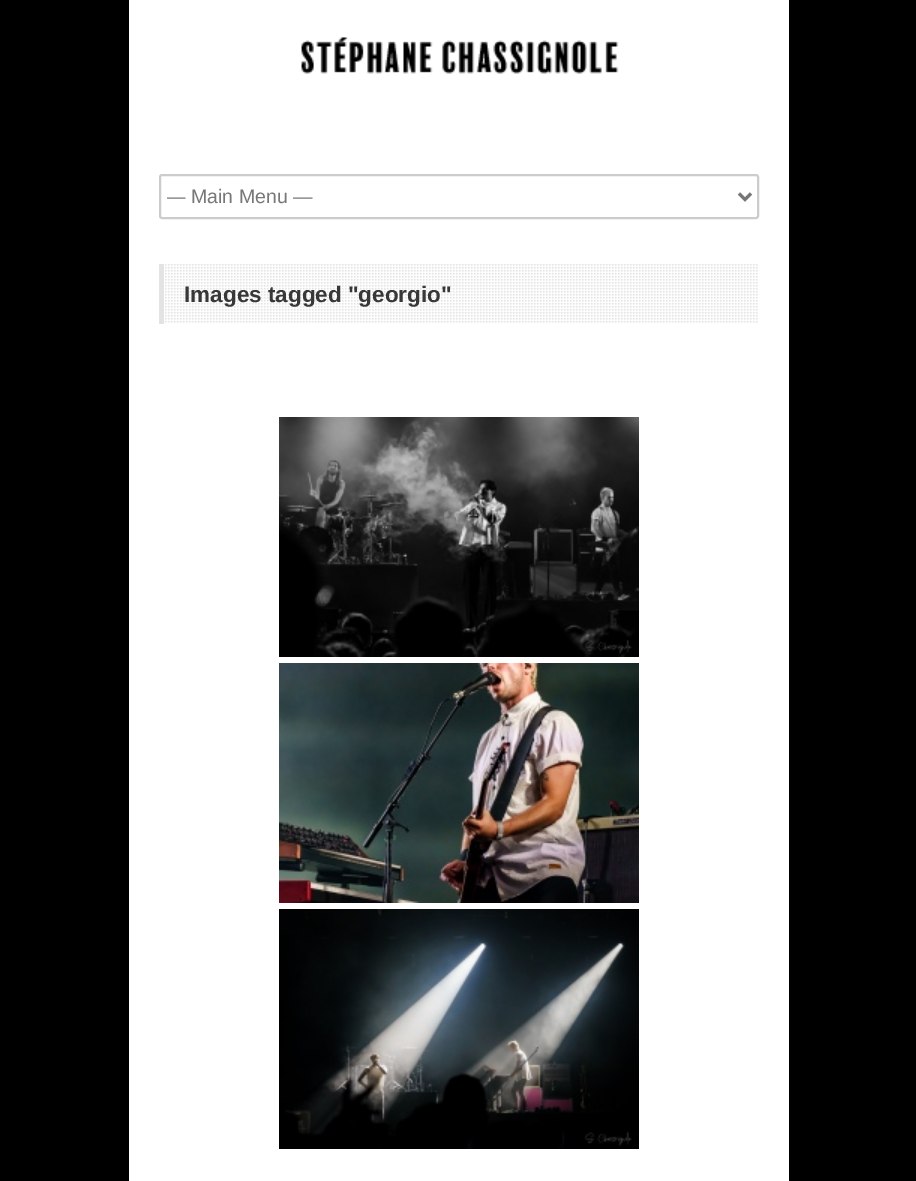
%!PS
<< /PageSize [916 1181] >> setpagedevice
/rgb { 3 { 255 div 3 1 roll } repeat setrgbcolor } def
/font { [ exch dup neg 0 0 3 -1 roll 0 0 ] selectfont } def
/roundrect { 5 dict begin { /r /h /w /y /x } { exch def } forall
  x r add y moveto x w add y 2 copy h add r arct x w add y h add x 1 index r arct
  x y h add x y r arct x y 2 copy exch w add exch r arct closepath end } def
/picture { 5 dict begin { /h /w /y /x /name } { exch def } forall
  gsave x y translate w h scale
  w h 8 [w 0 0 h 0 0] name (r) file false 3 colorimage grestore end } def
0 1181 translate 1 -1 scale
4 setmiterlimit
0 0 0 rgb
0 0 916 1181 rectfill
255 255 255 rgb
129 0 660 1181 rectfill
(img/1.rgb) 301 37 318 37 picture
204 204 204 rgb
2 setlinewidth
160 175 598 43 2 roundrect stroke
119 119 119 rgb
3 setlinewidth
739 193.5 moveto 745 199.5 lineto 751 193.5 lineto stroke
(img/2.rgb) 165 264 593 59 picture
227 227 227 rgb
159 264 5 60 rectfill
(img/3.rgb) 279 417 360 240 picture
(img/4.rgb) 279 663 360 240 picture
(img/5.rgb) 279 909 360 240 picture
gsave
167 185 567 25 rectclip
/LiberationSans-Regular 19.5 font
119 119 119 rgb
166 203 moveto (— Main Menu —) show
grestore
/LiberationSans-Bold 22.5 font
56 56 56 rgb
184 302 moveto (Images tagged "georgio") show
showpage
